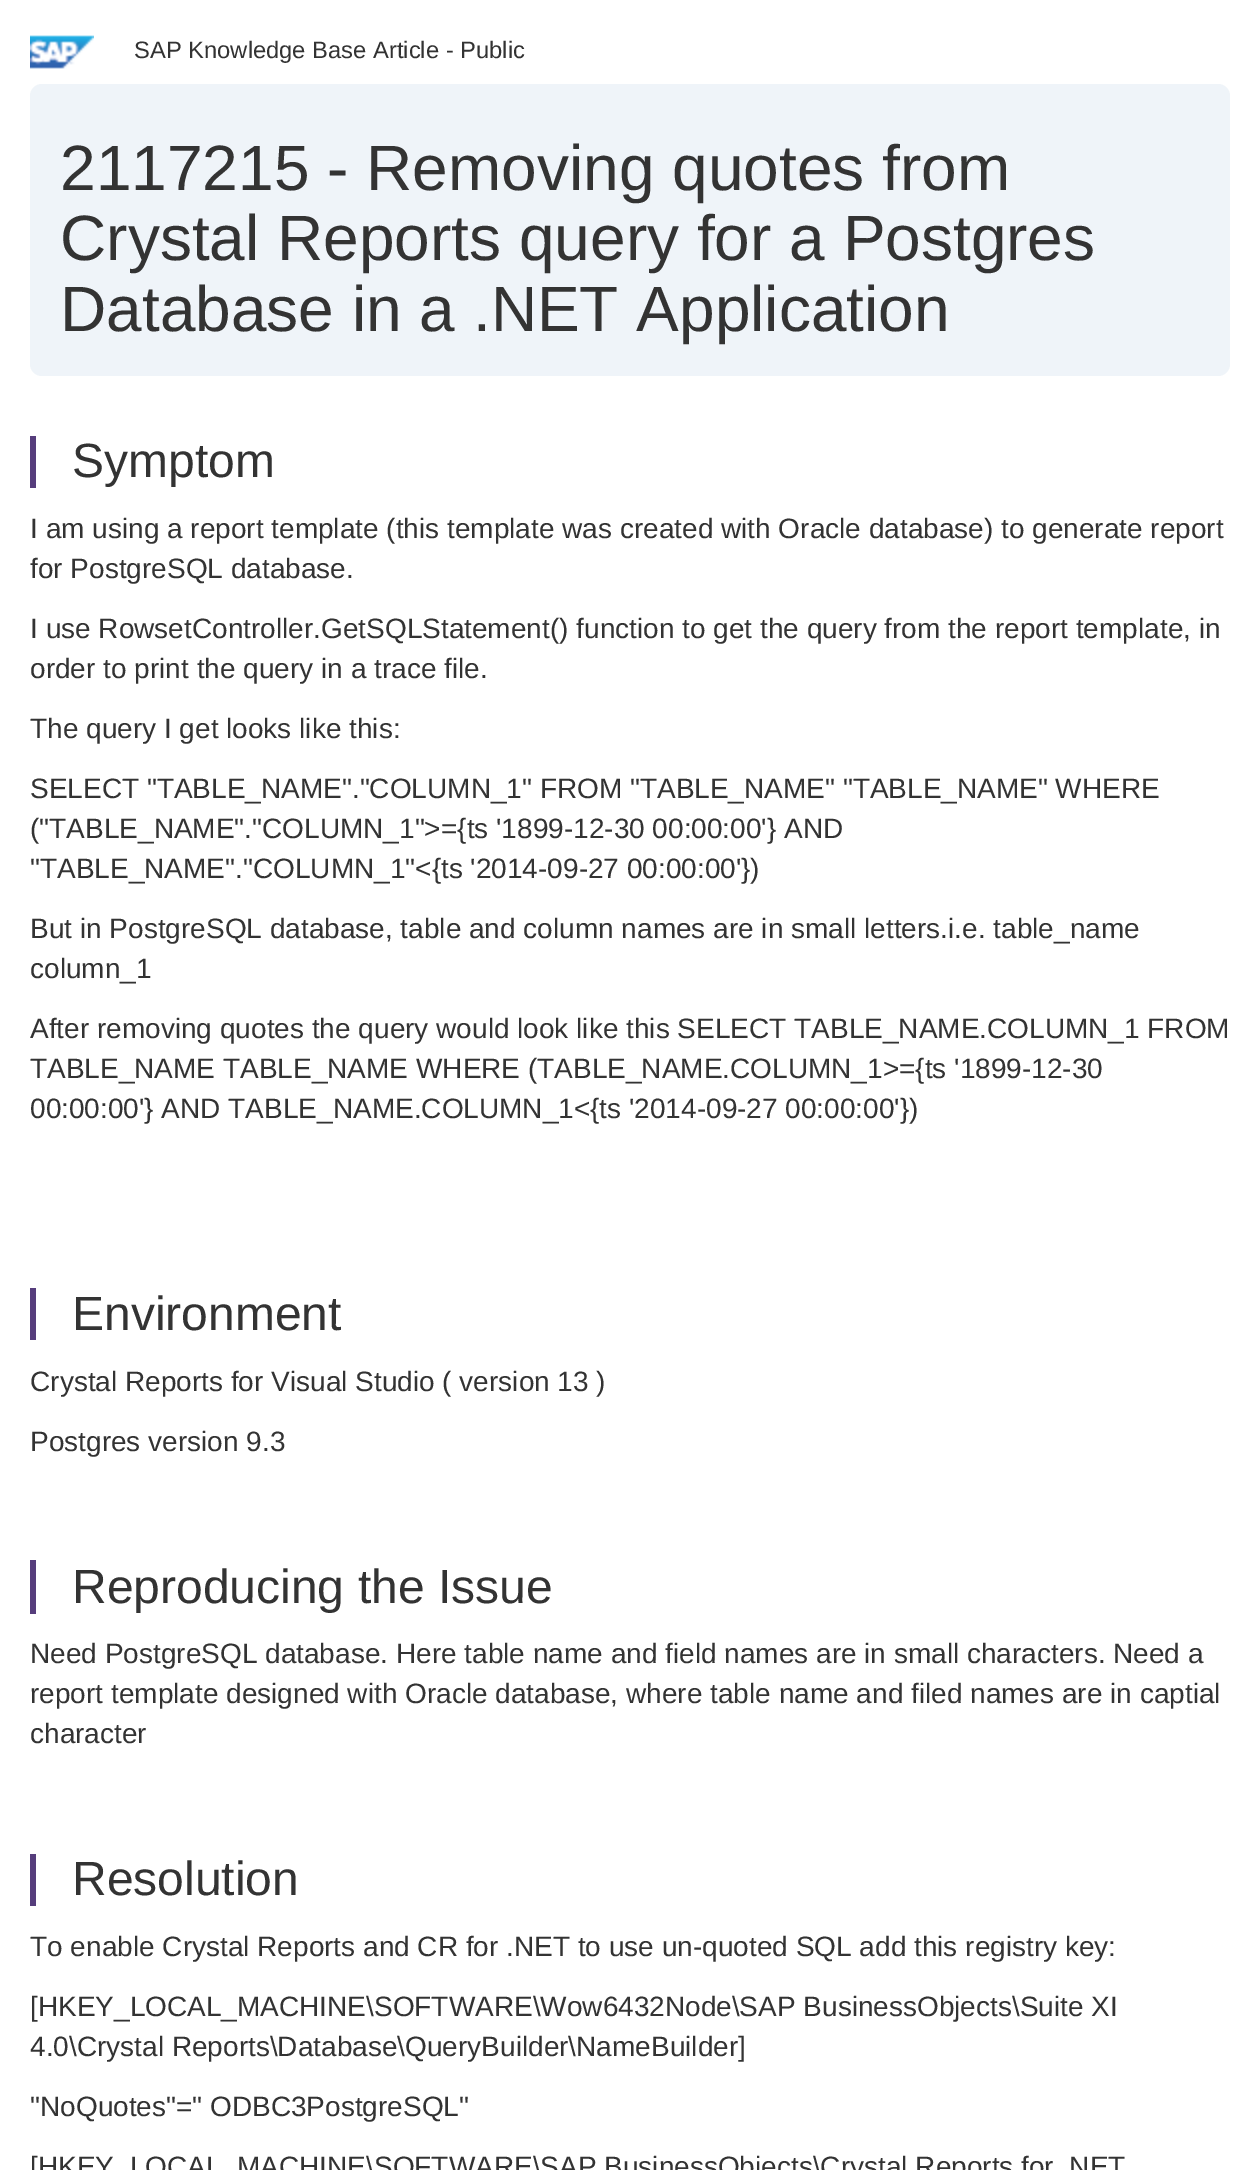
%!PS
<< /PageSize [1260 2170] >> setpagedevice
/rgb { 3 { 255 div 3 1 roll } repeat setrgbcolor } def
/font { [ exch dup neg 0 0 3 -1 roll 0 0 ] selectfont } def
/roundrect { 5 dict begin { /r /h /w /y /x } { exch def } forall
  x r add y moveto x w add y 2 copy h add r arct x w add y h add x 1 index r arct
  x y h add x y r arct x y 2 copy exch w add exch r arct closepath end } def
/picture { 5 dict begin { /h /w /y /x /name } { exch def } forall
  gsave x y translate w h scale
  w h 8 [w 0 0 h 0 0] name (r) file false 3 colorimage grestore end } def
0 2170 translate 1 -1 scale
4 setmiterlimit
255 255 255 rgb
0 0 1260 2170 rectfill
(img/1.rgb) 30 35 64 34 picture
239 244 249 rgb
30 84 1200 292 12 roundrect fill
[
  [30 436 6 52 86 61 124]
  [30 1288 6 52 86 61 124]
  [30 1560 6 54 86 61 124]
  [30 1854 6 52 86 61 124]
] { aload pop rgb rectfill } forall
/LiberationSans-Regular 23.75 font
51 51 51 rgb
134 58 moveto (SAP Knowledge Base Article - Public) show
/LiberationSans-Regular 64 font
[
  [(2117215 - Removing quotes from) 60 190]
  [(Crystal Reports query for a Postgres) 60 260]
  [(Database in a .NET Application) 60 331]
] { aload pop moveto show } forall
/LiberationSans-Regular 48 font
72 477 moveto (Symptom) show
/LiberationSans-Regular 28 font
[
  [(I am using a report template \(this template was created with Oracle database\) to generate report) 30 538]
  [(for PostgreSQL database.) 30 578]
  [(I use RowsetController.GetSQLStatement\(\) function to get the query from the report template, in) 30 638]
  [(order to print the query in a trace file.) 30 678]
  [(The query I get looks like this:) 30 738]
  [(SELECT "TABLE_NAME"."COLUMN_1" FROM "TABLE_NAME" "TABLE_NAME" WHERE) 30 798]
  [(\("TABLE_NAME"."COLUMN_1">={ts '1899-12-30 00:00:00'} AND) 30 838]
  [("TABLE_NAME"."COLUMN_1"<{ts '2014-09-27 00:00:00'}\)) 30 878]
  [(But in PostgreSQL database, table and column names are in small letters.i.e. table_name) 30 938]
  [(column_1) 30 978]
  [(After removing quotes the query would look like this SELECT TABLE_NAME.COLUMN_1 FROM) 30 1038]
  [(TABLE_NAME TABLE_NAME WHERE \(TABLE_NAME.COLUMN_1>={ts '1899-12-30) 30 1078]
  [(00:00:00'} AND TABLE_NAME.COLUMN_1<{ts '2014-09-27 00:00:00'}\)) 30 1118]
] { aload pop moveto show } forall
/LiberationSans-Regular 48 font
72 1330 moveto (Environment) show
/LiberationSans-Regular 28 font
30 1391 moveto (Crystal Reports for Visual Studio \( version 13 \)) show
30 1451 moveto (Postgres version 9.3) show
/LiberationSans-Regular 48 font
72 1603 moveto (Reproducing the Issue) show
/LiberationSans-Regular 28 font
[
  [(Need PostgreSQL database. Here table name and field names are in small characters. Need a) 30 1663]
  [(report template designed with Oracle database, where table name and filed names are in captial) 30 1703]
  [(character) 30 1743]
] { aload pop moveto show } forall
/LiberationSans-Regular 48 font
72 1895 moveto (Resolution) show
/LiberationSans-Regular 28 font
[
  [(To enable Crystal Reports and CR for .NET to use un-quoted SQL add this registry key:) 30 1956]
  [([HKEY_LOCAL_MACHINE\\SOFTWARE\\Wow6432Node\\SAP BusinessObjects\\Suite XI) 30 2016]
  [(4.0\\Crystal Reports\\Database\\QueryBuilder\\NameBuilder]) 30 2056]
  [("NoQuotes"=" ODBC3PostgreSQL") 30 2116]
  [([HKEY_LOCAL_MACHINE\\SOFTWARE\\SAP BusinessObjects\\Crystal Reports for .NET) 30 2176]
] { aload pop moveto show } forall
showpage
